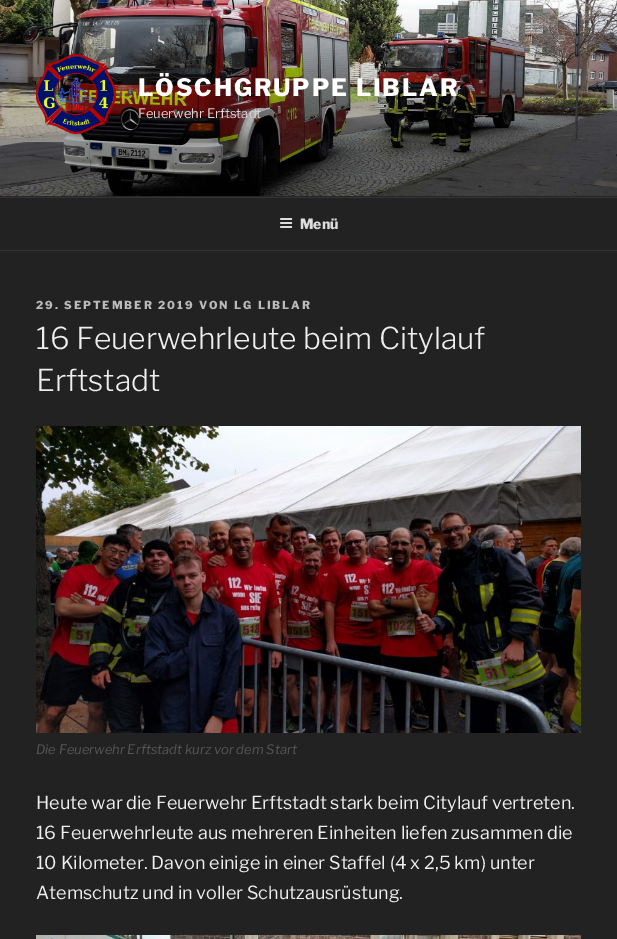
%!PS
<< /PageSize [617 939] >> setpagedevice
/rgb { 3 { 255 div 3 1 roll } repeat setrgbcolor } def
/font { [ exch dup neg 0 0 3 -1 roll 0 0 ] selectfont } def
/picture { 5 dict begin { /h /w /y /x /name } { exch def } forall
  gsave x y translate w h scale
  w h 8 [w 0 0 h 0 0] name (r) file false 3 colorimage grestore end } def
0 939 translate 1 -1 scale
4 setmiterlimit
34 34 34 rgb
0 0 617 939 rectfill
38 38 38 rgb
0 196 617 1 rectfill
(img/1.rgb) 0 0 617 196 picture
(img/2.rgb) 36 54 80 80 picture
51 51 51 rgb
0 197 617 1 rectfill
0 250 617 1 rectfill
(img/3.rgb) 280 218 13 10 picture
(img/4.rgb) 36 426 545 307 picture
(img/5.rgb) 36 935 545 4 picture
/LibreFranklin-Thin 24 font
255 255 255 rgb
138 96 moveto 1.9 0 (LÖSCHGRUPPE LIBLAR) ashow
/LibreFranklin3-Thin 13 font
220 212 212 rgb
138 118 moveto (Feuerwehr Erftstadt) show
/LibreFranklin-Thin 14 font
221 221 221 rgb
300 229 moveto (Menü) show
/LibreFranklin-Thin 11 font
187 187 187 rgb
36 309 moveto 2 0 (29. SEPTEMBER 2019 VON LG LIBLAR) ashow
/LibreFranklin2-Thin 30 font
238 238 238 rgb
36 349 moveto (16 Feuerwehrleute beim Citylauf) show
36 391 moveto (Erftstadt) show
/LibreFranklin-ThinItalic 13 font
85 85 85 rgb
36 754 moveto (Die Feuerwehr Erftstadt kurz vor dem Start) show
/LibreFranklin3-Thin 18 font
238 238 238 rgb
[
  [(Heute war die Feuerwehr Erftstadt stark beim Citylauf vertreten.) 36 809]
  [(16 Feuerwehrleute aus mehreren Einheiten liefen zusammen die) 36 839]
  [(10 Kilometer. Davon einige in einer Staffel \(4 x 2,5 km\) unter) 36 869]
  [(Atemschutz und in voller Schutzausrüstung.) 36 899]
] { aload pop moveto show } forall
showpage
